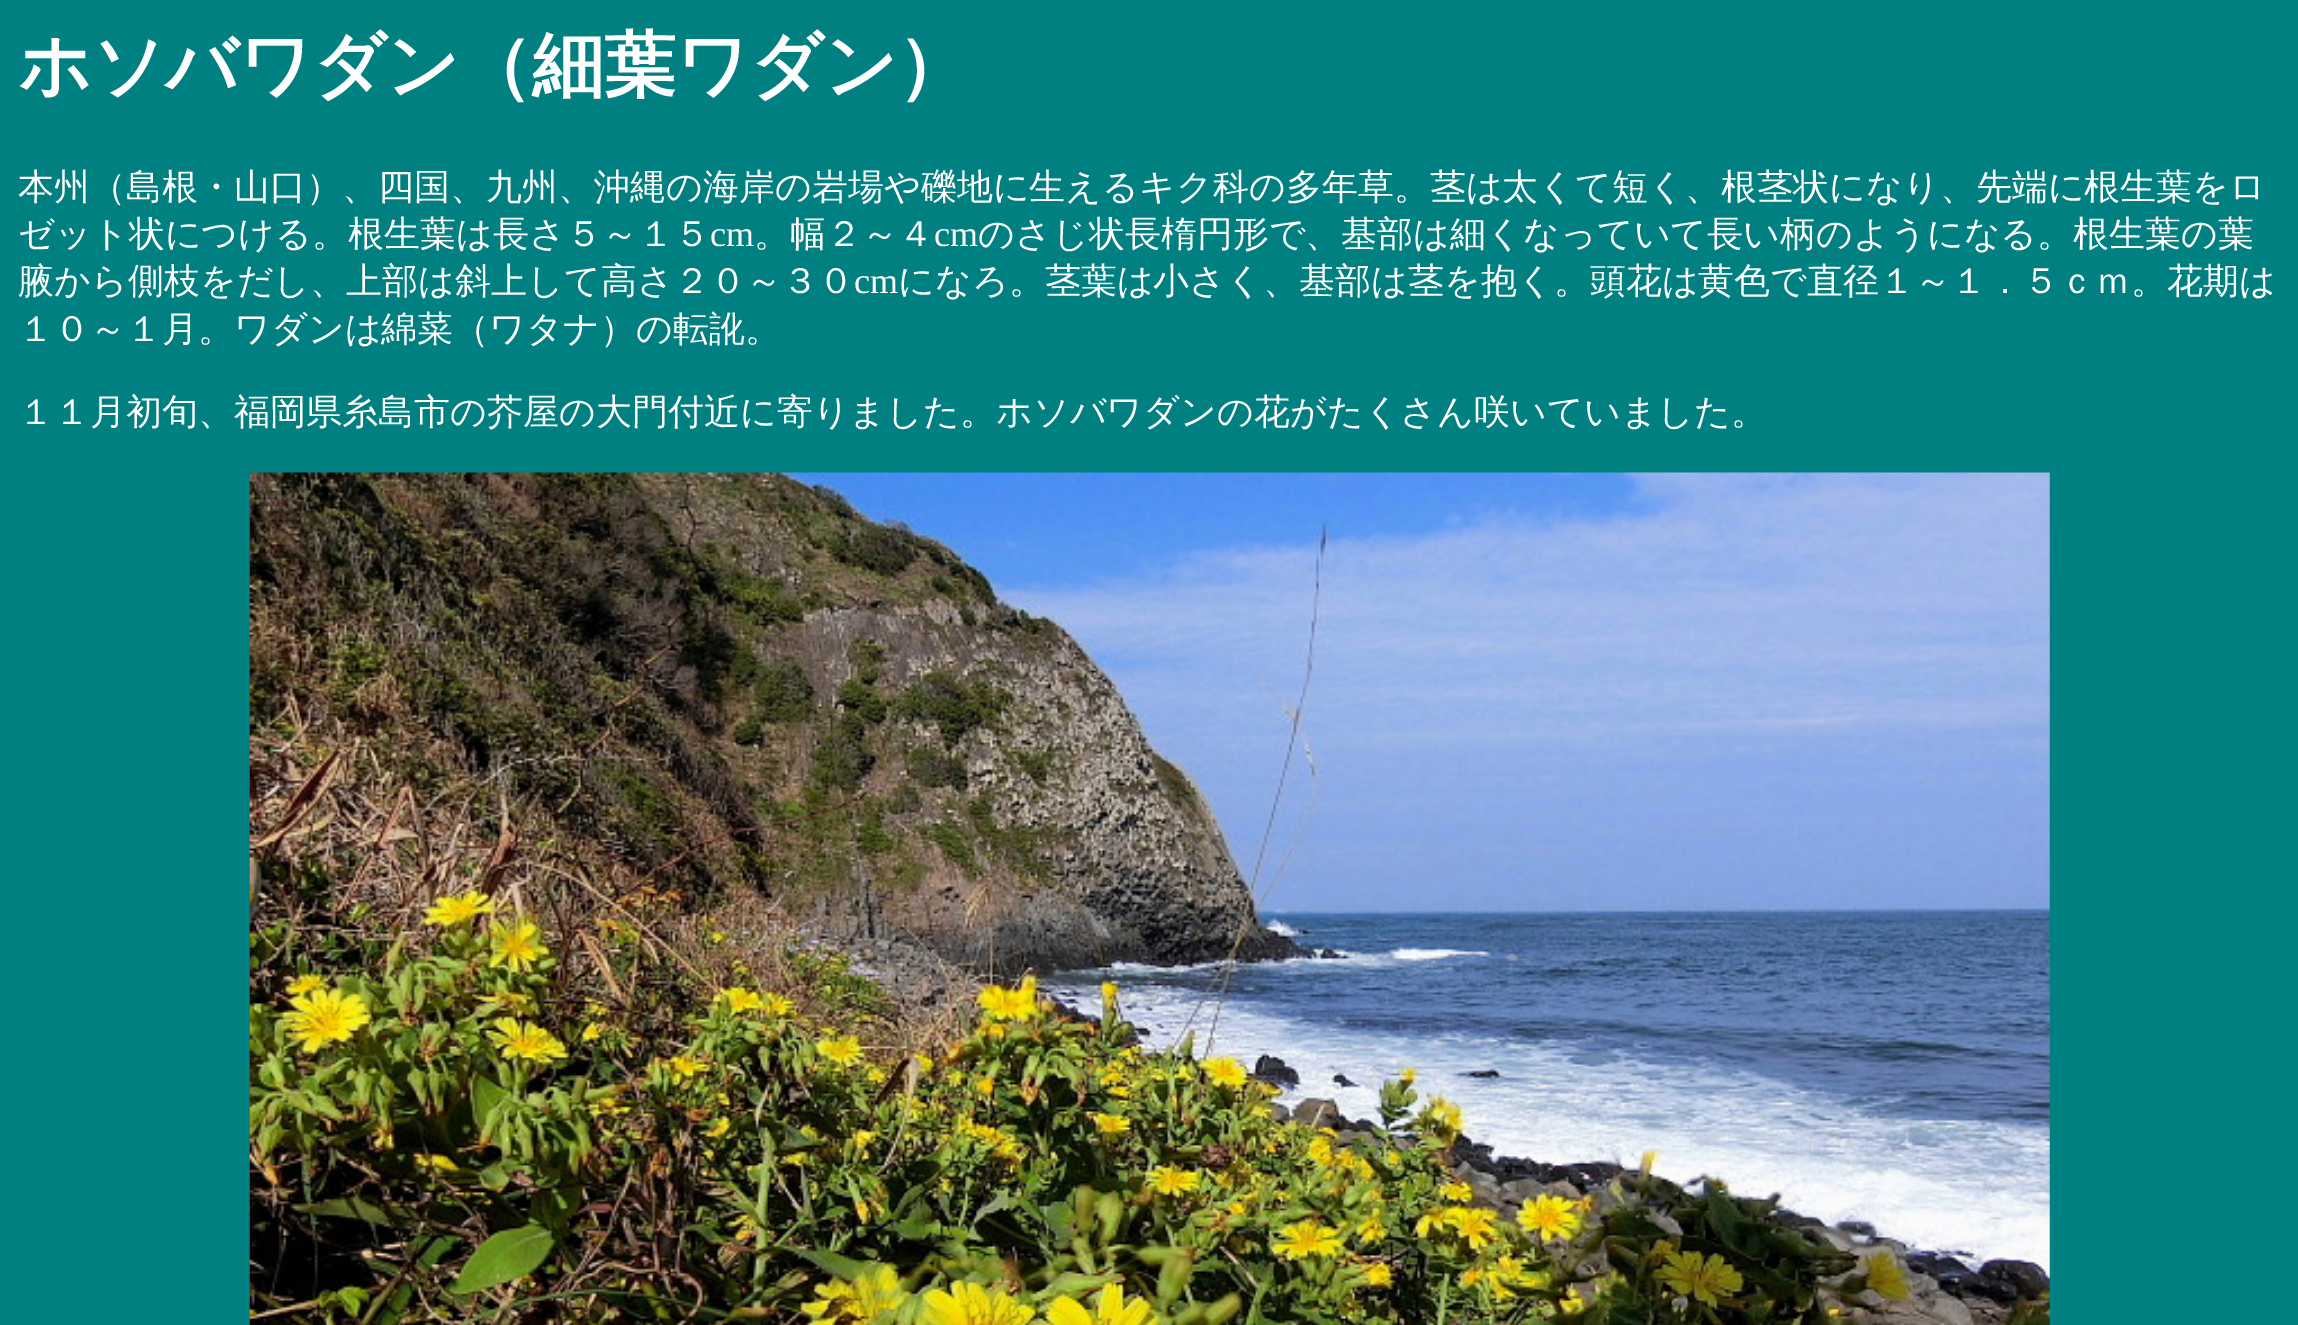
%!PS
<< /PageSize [2298 1325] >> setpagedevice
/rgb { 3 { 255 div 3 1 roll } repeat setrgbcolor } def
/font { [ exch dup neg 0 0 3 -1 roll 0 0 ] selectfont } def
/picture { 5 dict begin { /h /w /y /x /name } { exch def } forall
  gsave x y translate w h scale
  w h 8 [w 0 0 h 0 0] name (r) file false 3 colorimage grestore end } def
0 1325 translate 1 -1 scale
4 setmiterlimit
0 128 128 rgb
0 0 2298 1325 rectfill
(img/1.rgb) 249 472 1801 853 picture
/WenQuanYiZenHei-Bold 72 font
255 255 255 rgb
18 90 moveto (ホソバワダン（細葉ワダン）) show
/WenQuanYiZenHei-Medium 36 font
18 199 moveto (本州（島根・山口）、四国、九州、沖縄の海岸の岩場や礫地に生えるキク科の多年草。茎は太くて短く、根茎状になり、先端に根生葉をロ) show
18 246 moveto (ゼット状につける。根生葉は長さ５～１５) show
/LiberationSerif-Regular 36 font
710 246 moveto (cm) show
/WenQuanYiZenHei-Medium 36 font
754 246 moveto (。幅２～４) show
/LiberationSerif-Regular 36 font
934 246 moveto (cm) show
/WenQuanYiZenHei-Medium 36 font
978 246 moveto (のさじ状長楕円形で、基部は細くなっていて長い柄のようになる。根生葉の葉) show
18 293 moveto (腋から側枝をだし、上部は斜上して高さ２０～３０) show
/LiberationSerif-Regular 36 font
854 293 moveto (cm) show
/WenQuanYiZenHei-Medium 36 font
[
  [(になろ。茎葉は小さく、基部は茎を抱く。頭花は黄色で直径１～１．５ｃｍ。花期は) 898 293]
  [(１０～１月。ワダンは綿菜（ワタナ）の転訛。) 18 341]
  [(１１月初旬、福岡県糸島市の芥屋の大門付近に寄りました。ホソバワダンの花がたくさん咲いていました。) 18 424]
] { aload pop moveto show } forall
showpage
